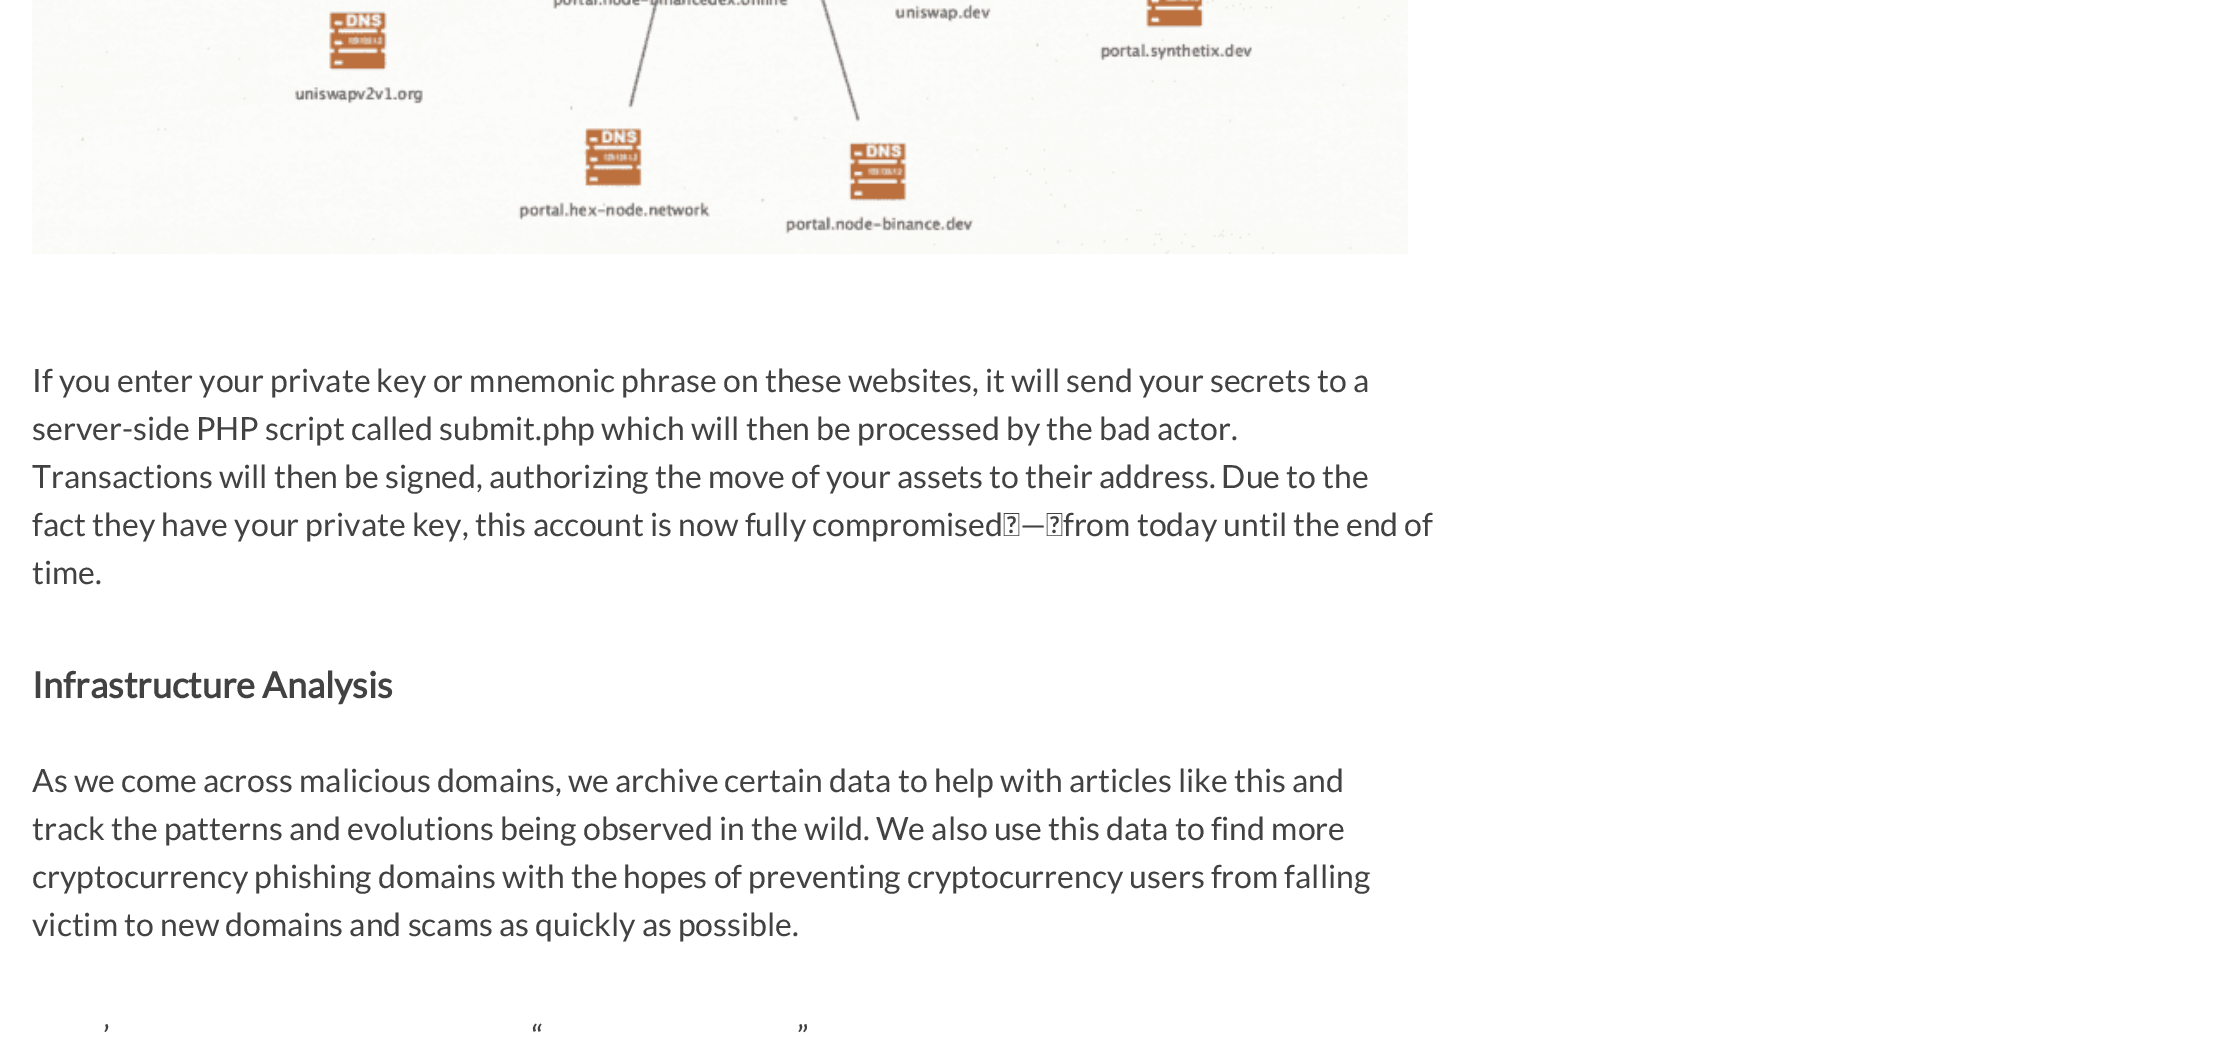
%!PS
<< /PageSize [2228 1040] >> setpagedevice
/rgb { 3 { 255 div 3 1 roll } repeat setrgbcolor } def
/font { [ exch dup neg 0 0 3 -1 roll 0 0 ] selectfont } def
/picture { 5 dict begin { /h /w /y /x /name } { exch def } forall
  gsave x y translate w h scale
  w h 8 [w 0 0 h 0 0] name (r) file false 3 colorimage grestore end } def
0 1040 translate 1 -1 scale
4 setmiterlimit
255 255 255 rgb
0 0 2228 1040 rectfill
(img/1.rgb) 32 0 1376 254 picture
/Lato-Regular 32 font
66 66 66 rgb
[
  [(If you enter your private key or mnemonic phrase on these websites, it will send your secrets to a) 32 392]
  [(server-side PHP script called submit.php which will then be processed by the bad actor.) 32 440]
  [(Transactions will then be signed, authorizing the move of your assets to their address. Due to the) 32 488]
  [(fact they have your private key, this account is now fully compromised — from today until the end of) 32 536]
  [(time.) 32 584]
] { aload pop moveto show } forall
/Lato-Bold 36 font
32 698 moveto (Infrastructure Analysis) show
/Lato-Regular 32 font
[
  [(As we come across malicious domains, we archive certain data to help with articles like this and) 32 792]
  [(track the patterns and evolutions being observed in the wild. We also use this data to find more) 32 840]
  [(cryptocurrency phishing domains with the hopes of preventing cryptocurrency users from falling) 32 888]
  [(victim to new domains and scams as quickly as possible.) 32 936]
  [(’) 103 1048]
  [(“) 532 1048]
  [(”) 797 1048]
] { aload pop moveto show } forall
showpage
